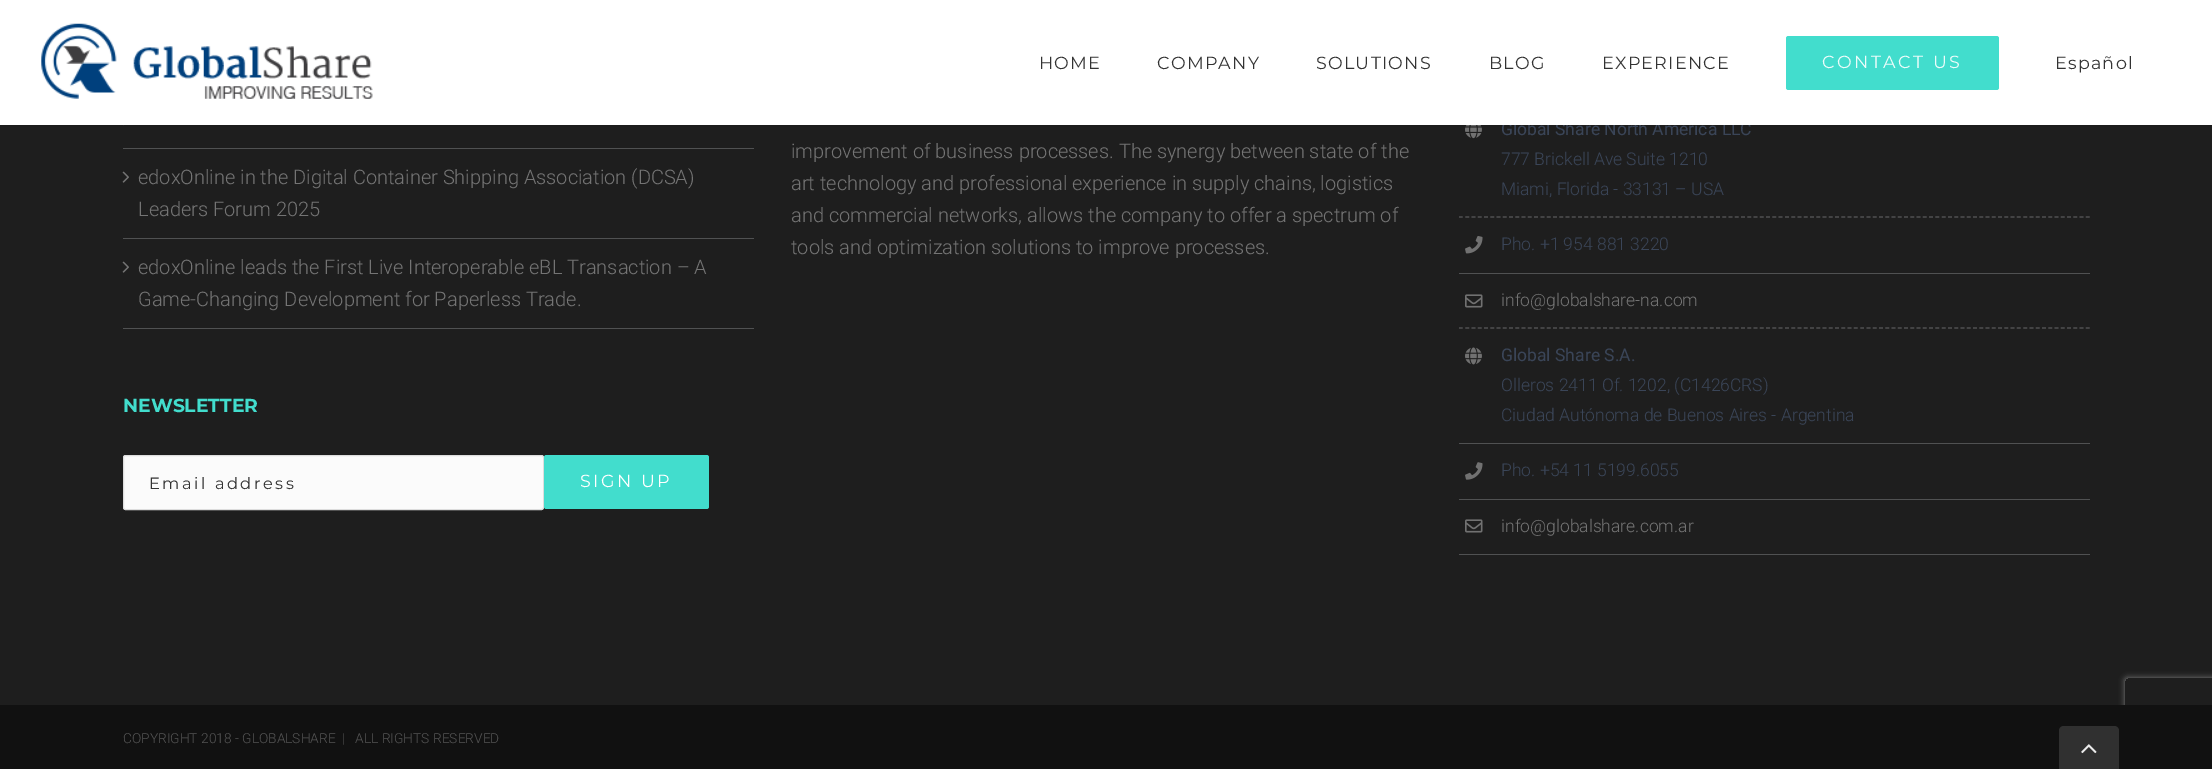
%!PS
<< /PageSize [2212 769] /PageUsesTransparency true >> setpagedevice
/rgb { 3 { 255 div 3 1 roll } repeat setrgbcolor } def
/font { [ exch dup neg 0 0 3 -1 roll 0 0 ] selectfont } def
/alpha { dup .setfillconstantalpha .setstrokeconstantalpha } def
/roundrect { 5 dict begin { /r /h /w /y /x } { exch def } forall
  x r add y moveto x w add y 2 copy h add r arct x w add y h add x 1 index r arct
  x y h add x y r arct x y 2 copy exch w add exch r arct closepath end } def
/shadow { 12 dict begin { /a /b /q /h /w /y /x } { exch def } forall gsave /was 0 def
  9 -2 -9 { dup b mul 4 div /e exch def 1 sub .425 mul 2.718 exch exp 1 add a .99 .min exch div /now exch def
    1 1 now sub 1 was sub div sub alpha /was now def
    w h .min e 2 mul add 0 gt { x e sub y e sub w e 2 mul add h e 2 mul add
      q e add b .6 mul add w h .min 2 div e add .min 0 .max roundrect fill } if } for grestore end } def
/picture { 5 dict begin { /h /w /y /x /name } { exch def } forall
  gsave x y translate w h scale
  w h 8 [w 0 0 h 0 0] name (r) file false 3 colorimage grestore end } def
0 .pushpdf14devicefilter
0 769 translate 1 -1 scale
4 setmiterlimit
30 30 30 rgb
0 0 2212 769 rectfill
(img/2.rgb) 123 125 1 1 picture
(img/4.rgb) 1465 125 17 14 picture
0 0 0 rgb
0 1 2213 125 0 2 0.12 shadow
80 81 82 rgb
123 148 631 1 rectfill
123 238 631 1 rectfill
(img/3.rgb) 122 171 7 12 picture
123 328 631 1 rectfill
(img/3.rgb) 122 261 7 12 picture
251 251 251 rgb
123.5 455.5 420 54 2 roundrect gsave fill grestore
221 221 221 rgb
stroke
66 221 205 rgb
544 455 165 54 2.5 roundrect fill
80 81 82 rgb
1.2 setlinewidth
[3.75 2.52] 0 setdash
1459 217 moveto 2090 217 lineto stroke
1459 273 631 1 rectfill
(img/5.rgb) 1465 236 18 18 picture
1459 328 moveto 2090 328 lineto stroke
(img/6.rgb) 1465 294 18 14 picture
1459 443 631 1 rectfill
(img/7.rgb) 1465 347 17 18 picture
1459 499 631 1 rectfill
(img/8.rgb) 1465 462 18 18 picture
1459 554 631 1 rectfill
(img/6.rgb) 1465 519 18 14 picture
gsave
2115 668 moveto 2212 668 lineto 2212 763 lineto 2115 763 lineto closepath 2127.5 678 moveto 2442.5 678 lineto 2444 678 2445 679 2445 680.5 curveto 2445 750.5 lineto 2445 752 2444 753 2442.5 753 curveto 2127.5 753 lineto 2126 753 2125 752 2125 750.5 curveto 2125 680.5 lineto 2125 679 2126 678 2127.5 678 curveto closepath eoclip newpath
128 128 128 rgb
2125 678 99 75 2.5 3 1 shadow
grestore
17 17 17 rgb
0 705 2212 64 rectfill
48 48 48 rgb
2064 726 moveto 2114 726 lineto 2117 726 2119 728 2119 731 curveto 2119 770 lineto 2059 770 lineto 2059 731 lineto 2059 728 2061 726 2064 726 curveto closepath fill
(img/9.rgb) 2081 744 16 10 picture
/Roboto-Light 20 font
116 116 116 rgb
[
  [(edoxOnline in the Digital Container Shipping Association \(DCSA\)) 138 184]
  [(Leaders Forum 2025) 138 216]
  [(edoxOnline leads the First Live Interoperable eBL Transaction – A) 138 274]
  [(Game-Changing Development for Paperless Trade.) 138 306]
] { aload pop moveto show } forall
/Montserrat-Bold 18.75 font
66 221 205 rgb
123 412 moveto (NEWSLETTER) show
/Montserrat-Regular 16.25 font
51 51 51 rgb
149 489 moveto 2.5 0 (Email address) ashow
/Montserrat-Regular 17.5 font
255 255 255 rgb
580 487 moveto 2.5 0 (SIGN UP) ashow
/Roboto-Light 20 font
116 116 116 rgb
[
  [(improvement of business processes. The synergy between state of the) 791 158]
  [(art technology and professional experience in supply chains, logistics) 791 190]
  [(and commercial networks, allows the company to offer a spectrum of) 791 222]
  [(tools and optimization solutions to improve processes.) 791 254]
] { aload pop moveto show } forall
/Roboto-Regular 17.5 font
58 69 88 rgb
1501 135 moveto (Global Share North America LLC) show
255 255 255 rgb
0 0 2212 125 rectfill
/Montserrat-Regular 17.5 font
51 51 51 rgb
2055 69 moveto 1.25 0 (Español) ashow
66 221 205 rgb
1786 36 213 54 2.5 roundrect fill
236 252 250 rgb
1822 68 moveto 2.5 0 (CONTACT US) ashow
51 51 51 rgb
1602 69 moveto 1.25 0 (EXPERIENCE) ashow
1489 69 moveto 1.25 0 (BLOG) ashow
1316 69 moveto 1.25 0 (SOLUTIONS) ashow
1157 69 moveto 1.25 0 (COMPANY) ashow
1039 69 moveto 1.25 0 (HOME) ashow
(img/1.rgb) 41 23 332 76 picture
/Roboto-Light 17.5 font
58 69 88 rgb
[
  [(777 Brickell Ave Suite 1210) 1501 165]
  [(Miami, Florida - 33131 – USA) 1501 195]
  [(Pho. +1 954 881 3220) 1501 250]
] { aload pop moveto show } forall
116 116 116 rgb
1501 306 moveto (info@globalshare-na.com) show
/Roboto-Regular 17.5 font
58 69 88 rgb
1501 361 moveto (Global Share S.A.) show
/Roboto-Light 17.5 font
[
  [(Olleros 2411 Of. 1202, \(C1426CRS\)) 1501 391]
  [(Ciudad Autónoma de Buenos Aires - Argentina) 1501 421]
  [(Pho. +54 11 5199.6055) 1501 476]
] { aload pop moveto show } forall
116 116 116 rgb
1501 532 moveto (info@globalshare.com.ar) show
/Roboto-Light 13.75 font
84 84 84 rgb
123 743 moveto (COPYRIGHT 2018 - GLOBALSHARE  |   ALL RIGHTS RESERVED) show
.poppdf14devicefilter showpage
